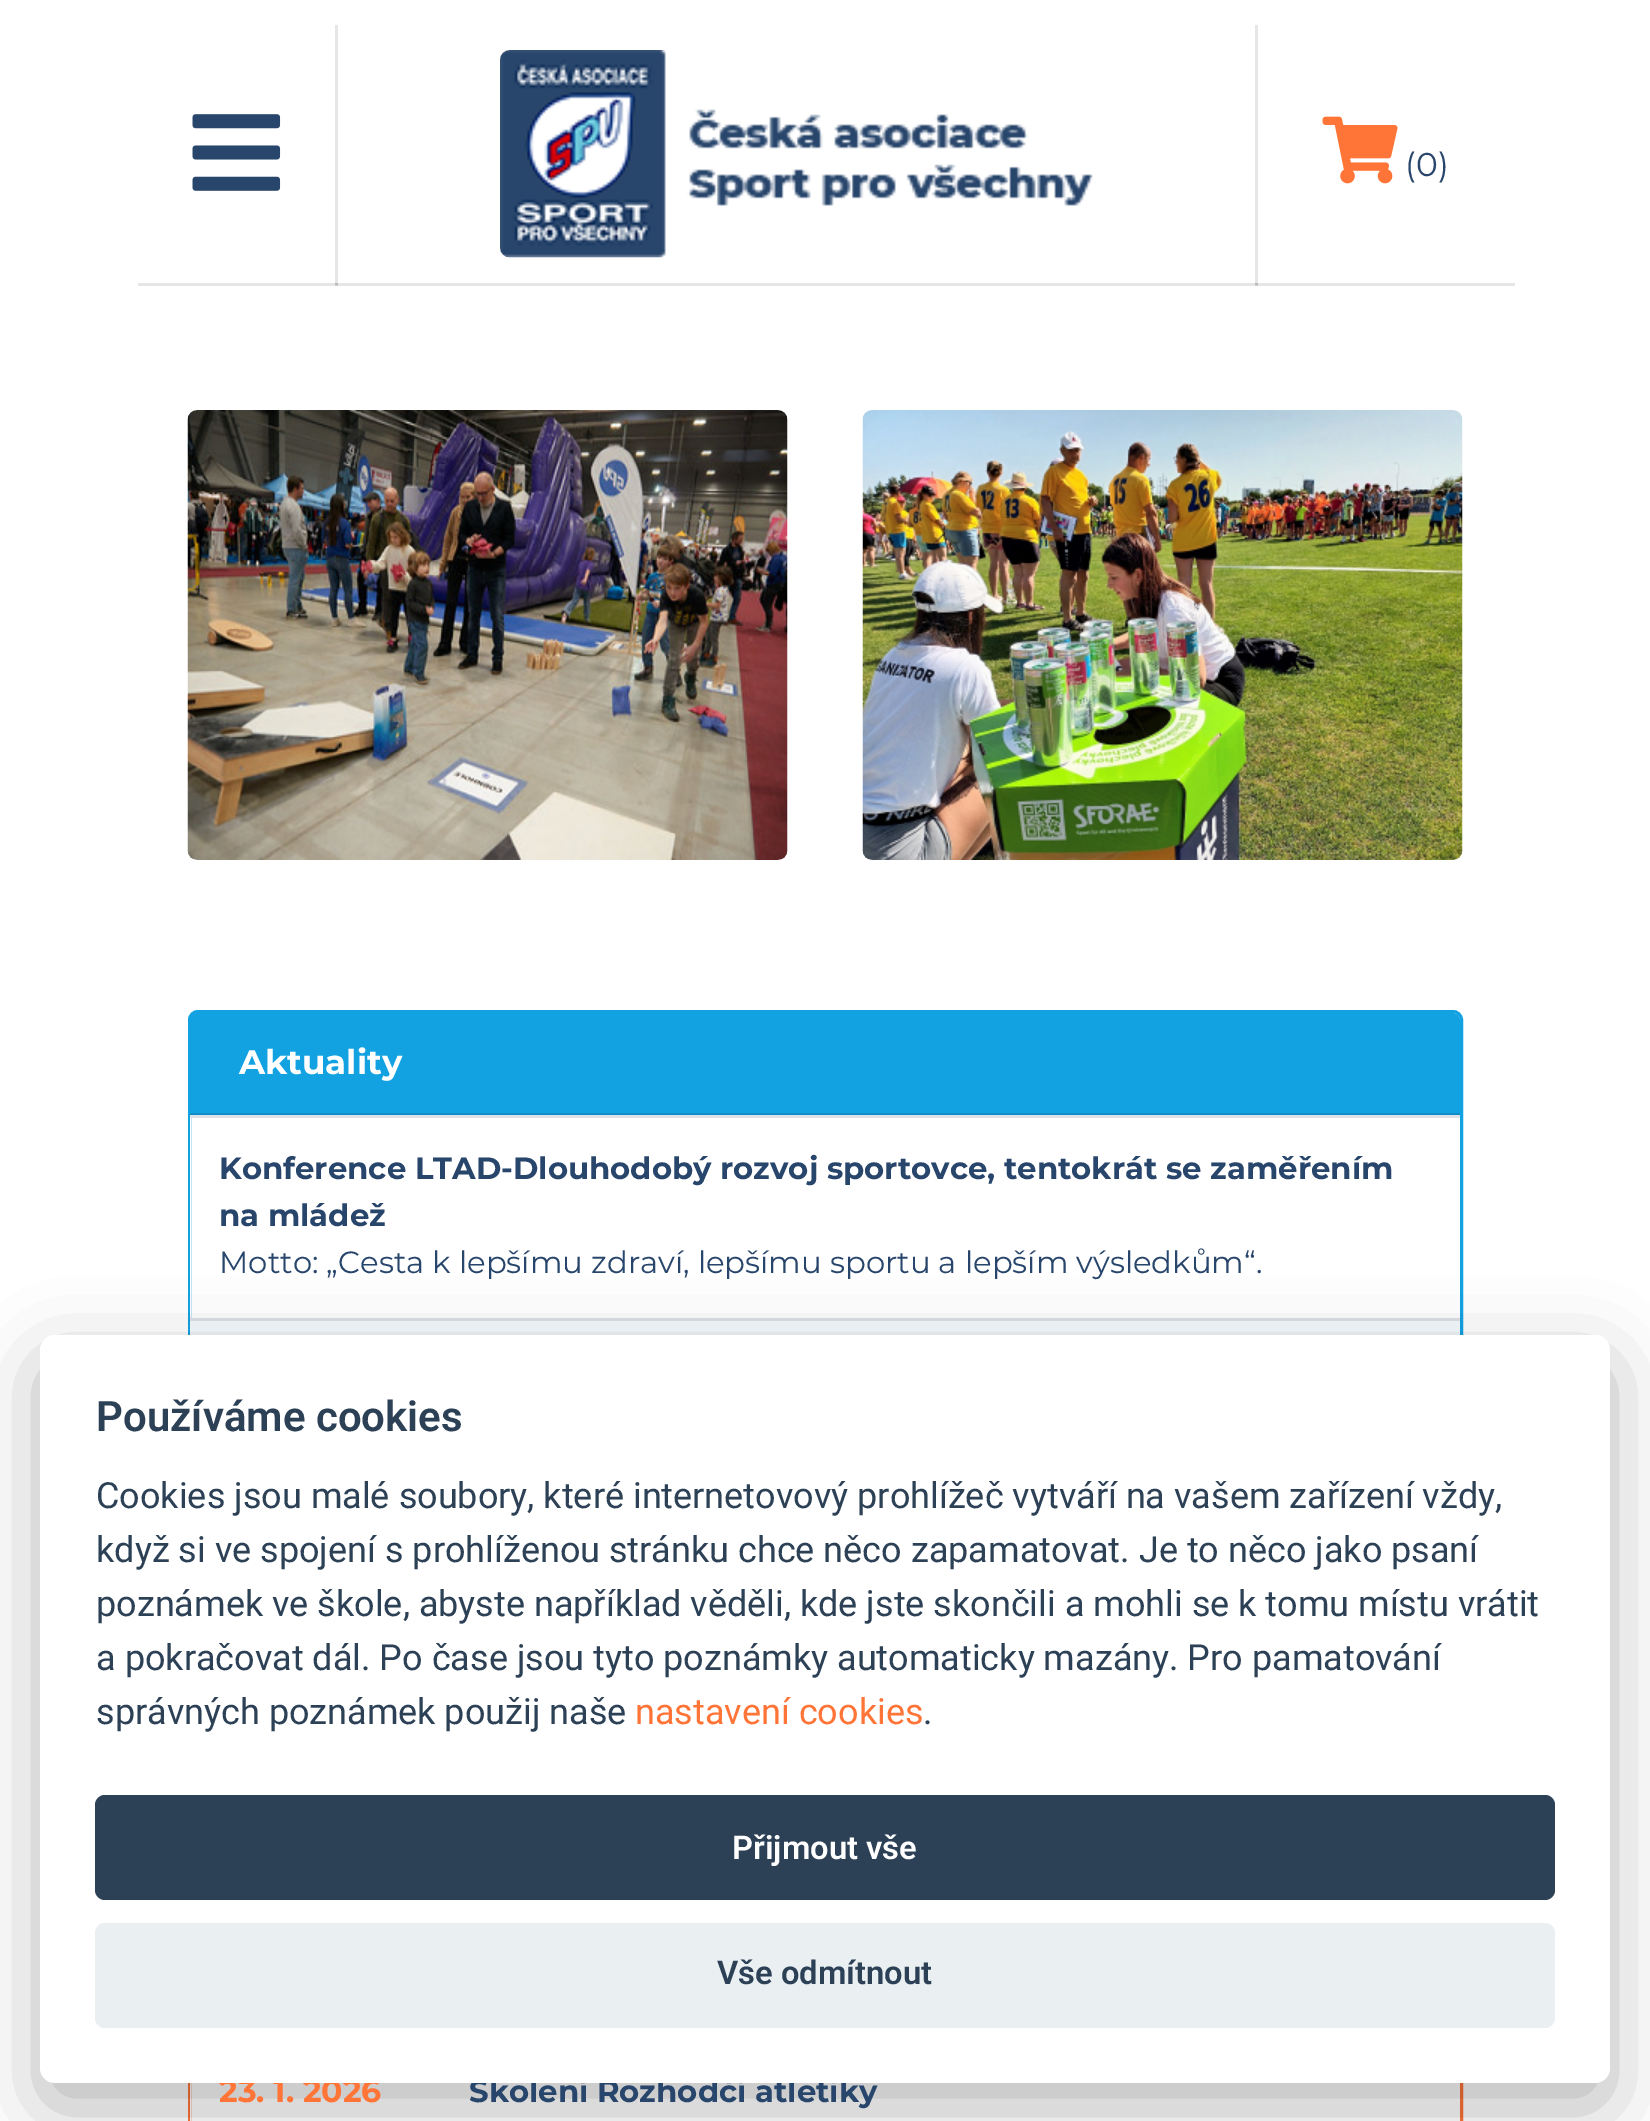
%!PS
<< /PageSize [1650 2121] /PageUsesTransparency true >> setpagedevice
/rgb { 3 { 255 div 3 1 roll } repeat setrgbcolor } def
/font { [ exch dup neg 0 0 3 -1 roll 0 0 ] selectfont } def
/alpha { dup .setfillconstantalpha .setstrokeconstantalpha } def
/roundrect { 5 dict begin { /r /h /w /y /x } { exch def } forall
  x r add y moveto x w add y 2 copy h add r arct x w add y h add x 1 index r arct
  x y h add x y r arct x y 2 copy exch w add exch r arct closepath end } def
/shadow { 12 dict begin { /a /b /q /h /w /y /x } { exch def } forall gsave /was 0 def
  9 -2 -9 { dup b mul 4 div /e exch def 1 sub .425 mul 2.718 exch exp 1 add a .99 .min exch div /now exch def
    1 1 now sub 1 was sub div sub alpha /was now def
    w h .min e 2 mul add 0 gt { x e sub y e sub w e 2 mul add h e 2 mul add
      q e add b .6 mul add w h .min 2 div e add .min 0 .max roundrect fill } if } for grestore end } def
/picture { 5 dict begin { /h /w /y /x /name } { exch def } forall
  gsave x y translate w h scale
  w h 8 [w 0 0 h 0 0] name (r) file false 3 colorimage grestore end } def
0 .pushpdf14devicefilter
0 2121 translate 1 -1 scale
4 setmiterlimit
255 255 255 rgb
0 0 1650 2121 rectfill
[
  [138 283 200 3 230 230 230]
  [335 25 3 260 230 230 230]
  [335 283 923 3 230 230 230]
  [335 285 3 1 207 207 207]
  [335 283 3 2 186 186 186]
  [1255 25 3 260 230 230 230]
] { aload pop rgb rectfill } forall
(img/1.rgb) 192 114 89 77 picture
(img/2.rgb) 500 50 593 208 picture
[
  [1255 283 260 3 230 230 230]
  [1255 285 3 1 207 207 207]
  [1255 283 3 2 186 186 186]
] { aload pop rgb rectfill } forall
(img/3.rgb) 1322 116 76 68 picture
(img/4.rgb) 187 410 601 450 picture
(img/5.rgb) 862 410 601 450 picture
18 162 226 rgb
3 setlinewidth
189.5 1011.5 1272 730 8.5 roundrect stroke
198 1013 moveto 1452 1013 lineto 1456.5 1013 1460 1016.5 1460 1021 curveto 1460 1115 lineto 190 1115 lineto 190 1021 lineto 190 1016.5 193.5 1013 198 1013 curveto closepath fill
0.12 alpha
[
  [190 1113 1270 2 0 0 0]
] { aload pop rgb rectfill } forall
1 alpha
[
  [190 1118 1 200 255 255 255]
  [190 1115 1270 3 222 226 230]
  [190 1321 1270 14 245 250 255]
  [190 1318 1270 3 222 226 230]
] { aload pop rgb rectfill } forall
255 116 55 rgb
189.5 1934.5 1272 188 rectstroke
255 255 255 rgb
190 2083 1 38 rectfill
2 2 3 rgb
40 1360 1570 748 15 37.5 0.28 shadow
/Montserrat-Regular 33 font
40 69 107 rgb
1405 176 moveto (\(0\)) show
/Montserrat-Bold 34 font
255 255 255 rgb
239 1074 moveto (Aktuality) show
/Montserrat-Bold 30.75 font
40 69 107 rgb
219 1179 moveto (Konference LTAD-Dlouhodobý rozvoj sportovce, tentokrát se zaměřením) show
219 1226 moveto (na mládež) show
/Montserrat-Regular 30.75 font
219 1273 moveto (Motto: „Cesta k lepšímu zdraví, lepšímu sportu a lepším výsledkům“.) show
/Montserrat-Bold 31.5 font
255 116 55 rgb
219 2102 moveto (23. 1. 2026) show
/Montserrat-Bold 30.75 font
40 69 107 rgb
469 2102 moveto (Školení Rozhodčí atletiky) show
255 255 255 rgb
40 1335 1570 748 15 roundrect fill
/Roboto-SemiBold 42 font
45 65 86 rgb
96 1431 moveto (Používáme cookies) show
/Roboto-Regular 36 font
[
  [(Cookies jsou malé soubory, které internetovový prohlížeč vytváří na vašem zařízení vždy,) 96 1508]
  [(když si ve spojení s prohlíženou stránku chce něco zapamatovat. Je to něco jako psaní) 96 1562]
  [(poznámek ve škole, abyste například věděli, kde jste skončili a mohli se k tomu místu vrátit) 96 1616]
  [(a pokračovat dál. Po čase jsou tyto poznámky automaticky mazány. Pro pamatování) 96 1670]
  [(správných poznámek použij naše) 96 1724]
] { aload pop moveto show } forall
255 116 55 rgb
635 1724 moveto (nastavení cookies) show
45 65 86 rgb
923 1724 moveto (.) show
95 1795 1460 105 10 roundrect fill
/Roboto-SemiBold 32.75 font
255 255 255 rgb
732 1859 moveto (Přijmout vše) show
234 239 242 rgb
95 1923 1460 105 10 roundrect fill
45 65 86 rgb
717 1984 moveto (Vše odmítnout) show
.poppdf14devicefilter showpage
